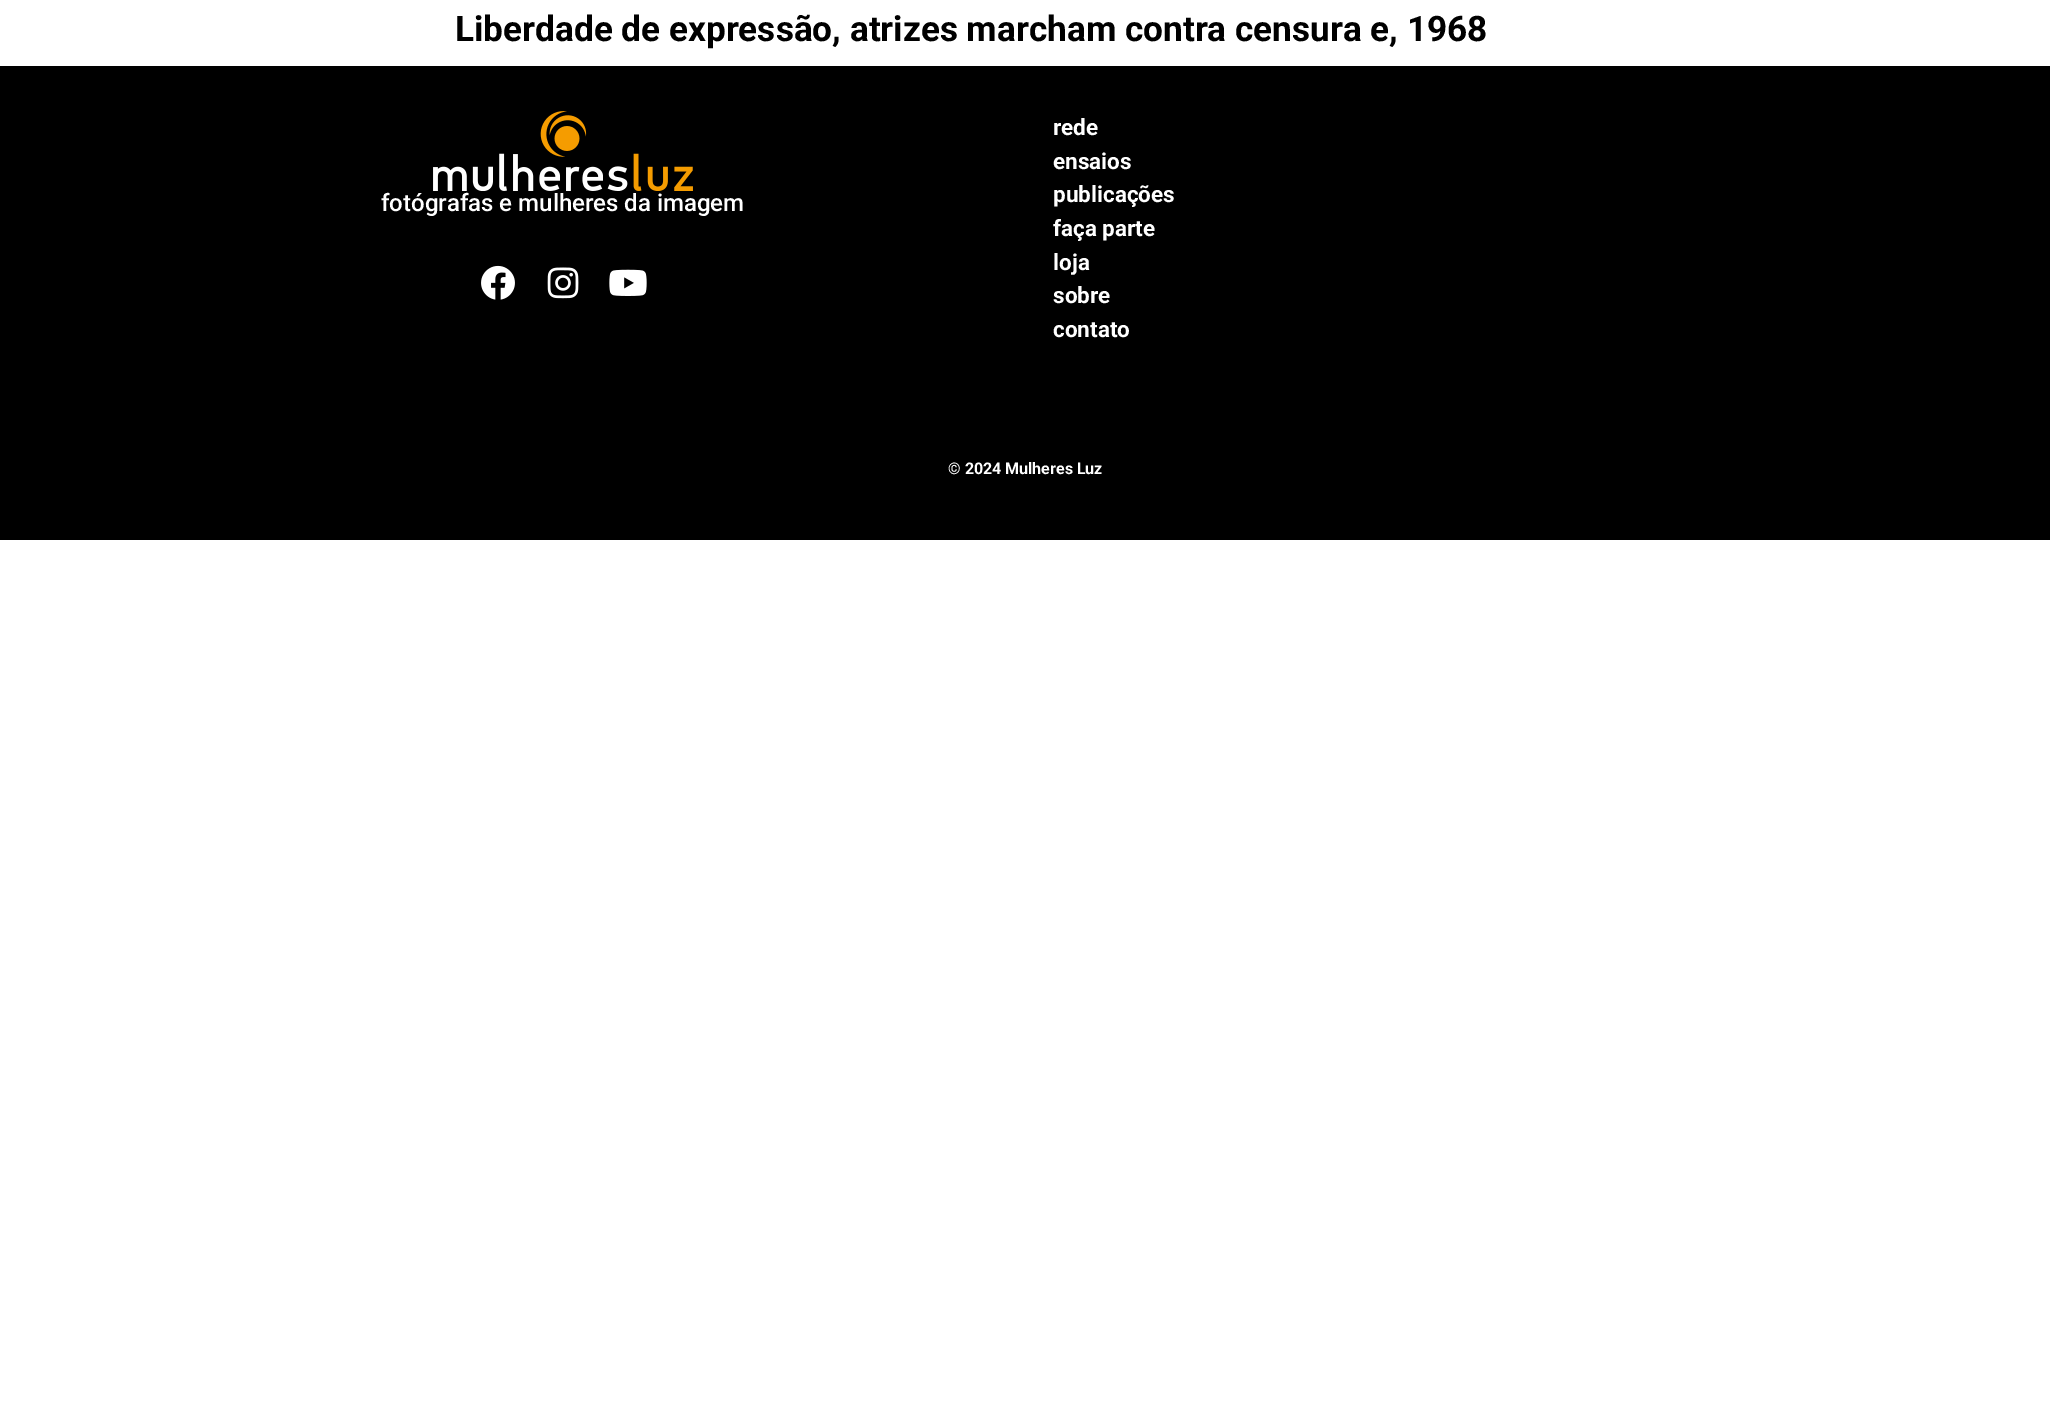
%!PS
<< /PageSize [2050 1406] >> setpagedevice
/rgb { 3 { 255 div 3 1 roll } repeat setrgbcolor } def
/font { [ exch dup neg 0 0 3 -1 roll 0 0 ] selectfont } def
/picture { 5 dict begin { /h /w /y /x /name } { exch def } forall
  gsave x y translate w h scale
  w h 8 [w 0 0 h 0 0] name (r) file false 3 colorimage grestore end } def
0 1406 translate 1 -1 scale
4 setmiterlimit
255 255 255 rgb
0 0 2050 1406 rectfill
0 0 0 rgb
0 66 2050 474 rectfill
(img/1.rgb) 433 111 260 80 picture
(img/2.rgb) 481 265 34 35 picture
(img/3.rgb) 547 267 32 32 picture
(img/4.rgb) 609 269 38 27 picture
/Roboto-Bold 35.2 font
455 41 moveto (Liberdade de expressão, atrizes marcham contra censura e, 1968) show
/Roboto-Medium 24 font
255 255 255 rgb
381 211 moveto (fotógrafas e mulheres da imagem) show
/Roboto-Bold 22.5 font
[
  [(rede) 1053 135]
  [(ensaios) 1053 169]
  [(publicações) 1053 202]
  [(faça parte) 1053 236]
  [(loja) 1053 270]
  [(sobre) 1053 303]
  [(contato) 1053 337]
] { aload pop moveto show } forall
/Roboto-Bold 16 font
948 474 moveto (© 2024 Mulheres Luz) show
showpage
